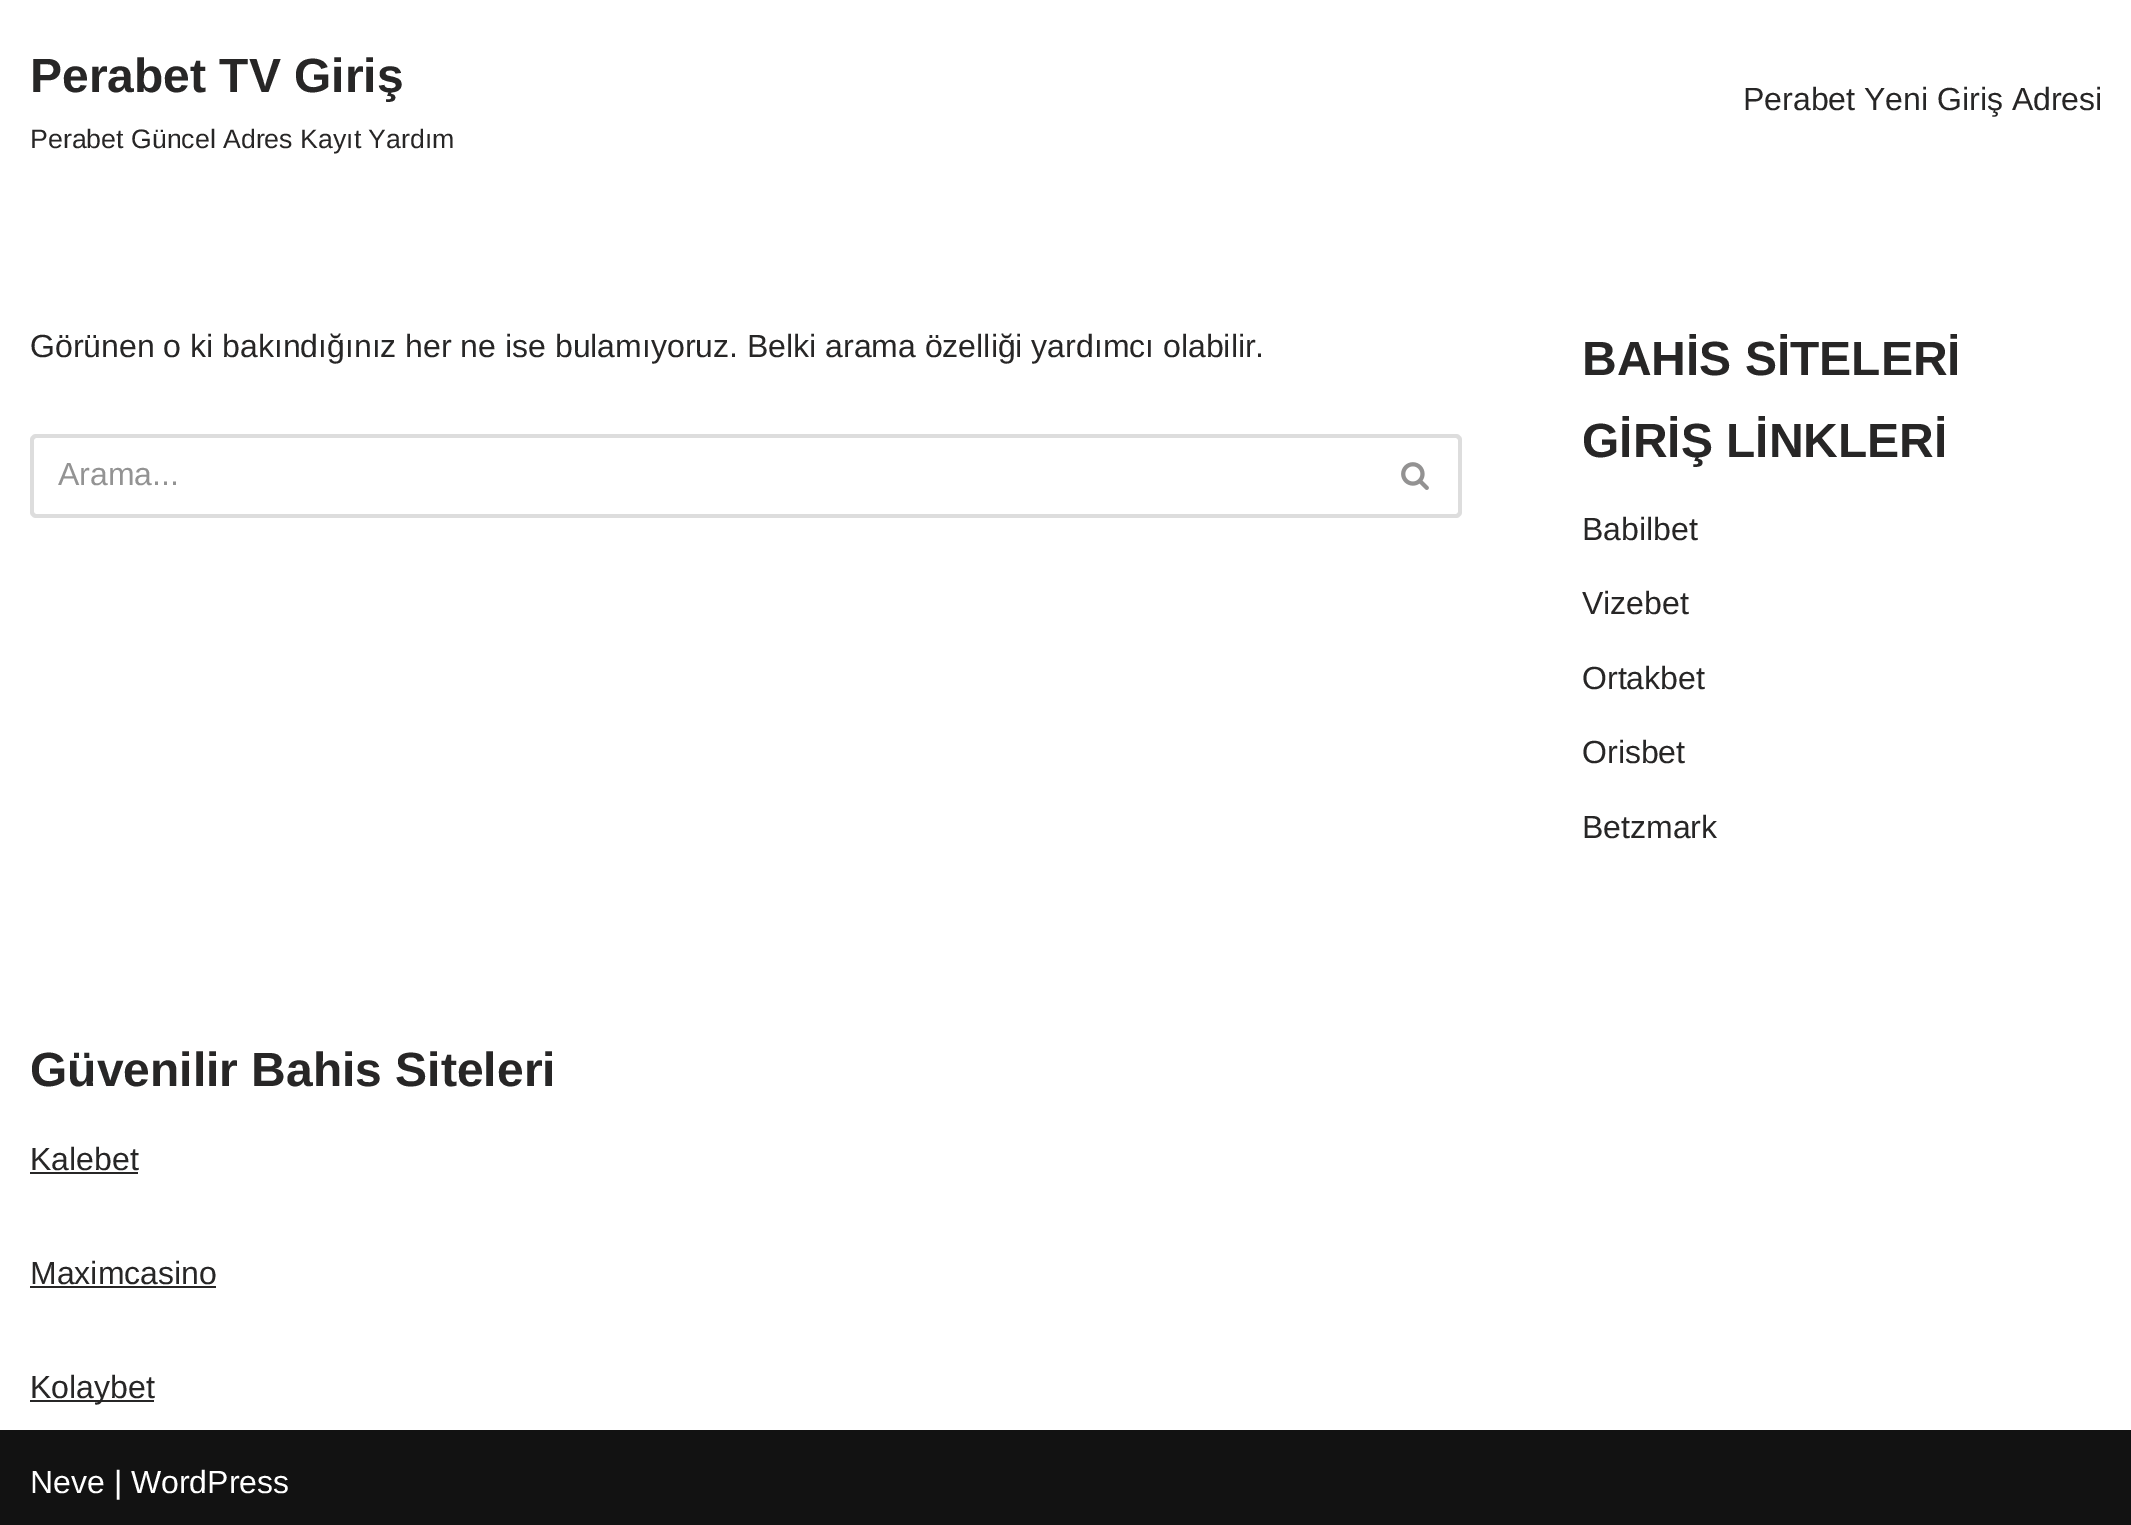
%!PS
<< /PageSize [2131 1525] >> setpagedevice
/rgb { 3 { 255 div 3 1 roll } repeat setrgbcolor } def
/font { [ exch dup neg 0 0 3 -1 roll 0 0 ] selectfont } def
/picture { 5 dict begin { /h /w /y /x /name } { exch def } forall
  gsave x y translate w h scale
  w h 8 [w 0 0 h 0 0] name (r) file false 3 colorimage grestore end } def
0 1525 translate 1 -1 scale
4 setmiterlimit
255 255 255 rgb
0 0 2131 1525 rectfill
221 221 221 rgb
36 434 moveto 1372 434 lineto 1372 518 lineto 36 518 lineto 33 518 30 515 30 512 curveto 30 440 lineto 30 437 33 434 36 434 curveto closepath 36 438 moveto 1372 438 lineto 1372 514 lineto 36 514 lineto 35 514 34 513 34 512 curveto 34 440 lineto 34 439 35 438 36 438 curveto closepath eofill
1372 434 moveto 1456 434 lineto 1459 434 1462 437 1462 440 curveto 1462 512 lineto 1462 515 1459 518 1456 518 curveto 1372 518 lineto closepath 1372 438 moveto 1456 438 lineto 1457 438 1458 439 1458 440 curveto 1458 512 lineto 1458 513 1457 514 1456 514 curveto 1372 514 lineto closepath eofill
(img/1.rgb) 1401 462 28 28 picture
[
  [30 1172 108 2 39 38 38]
  [30 1286 186 2 39 38 38]
  [30 1400 124 2 39 38 38]
  [0 1430 2131 95 18 18 18]
] { aload pop rgb rectfill } forall
/LiberationSans-Bold 48 font
39 38 38 rgb
30 92 moveto (Perabet TV Giriş) show
/LiberationSans-Regular 26.7 font
30 148 moveto (Perabet Güncel Adres Kayıt Yardım) show
/LiberationSans-Regular 32 font
1743 110 moveto (Perabet Yeni Giriş Adresi) show
30 357 moveto (Görünen o ki bakındığınız her ne ise bulamıyoruz. Belki arama özelliği yardımcı olabilir.) show
147 147 147 rgb
58 485 moveto (Arama...) show
/LiberationSans-Bold 48 font
39 38 38 rgb
1582 375 moveto (BAHİS SİTELERİ) show
1582 457 moveto (GİRİŞ LİNKLERİ) show
/LiberationSans-Regular 32 font
[
  [(Babilbet) 1582 540]
  [(Vizebet) 1582 614]
  [(Ortakbet) 1582 689]
  [(Orisbet) 1582 763]
  [(Betzmark) 1582 838]
] { aload pop moveto show } forall
/LiberationSans-Bold 48 font
30 1086 moveto (Güvenilir Bahis Siteleri) show
/LiberationSans-Regular 32 font
[
  [(Kalebet) 30 1170]
  [(Maximcasino) 30 1284]
  [(Kolaybet) 30 1398]
] { aload pop moveto show } forall
255 255 255 rgb
30 1493 moveto (Neve | WordPress) show
showpage
